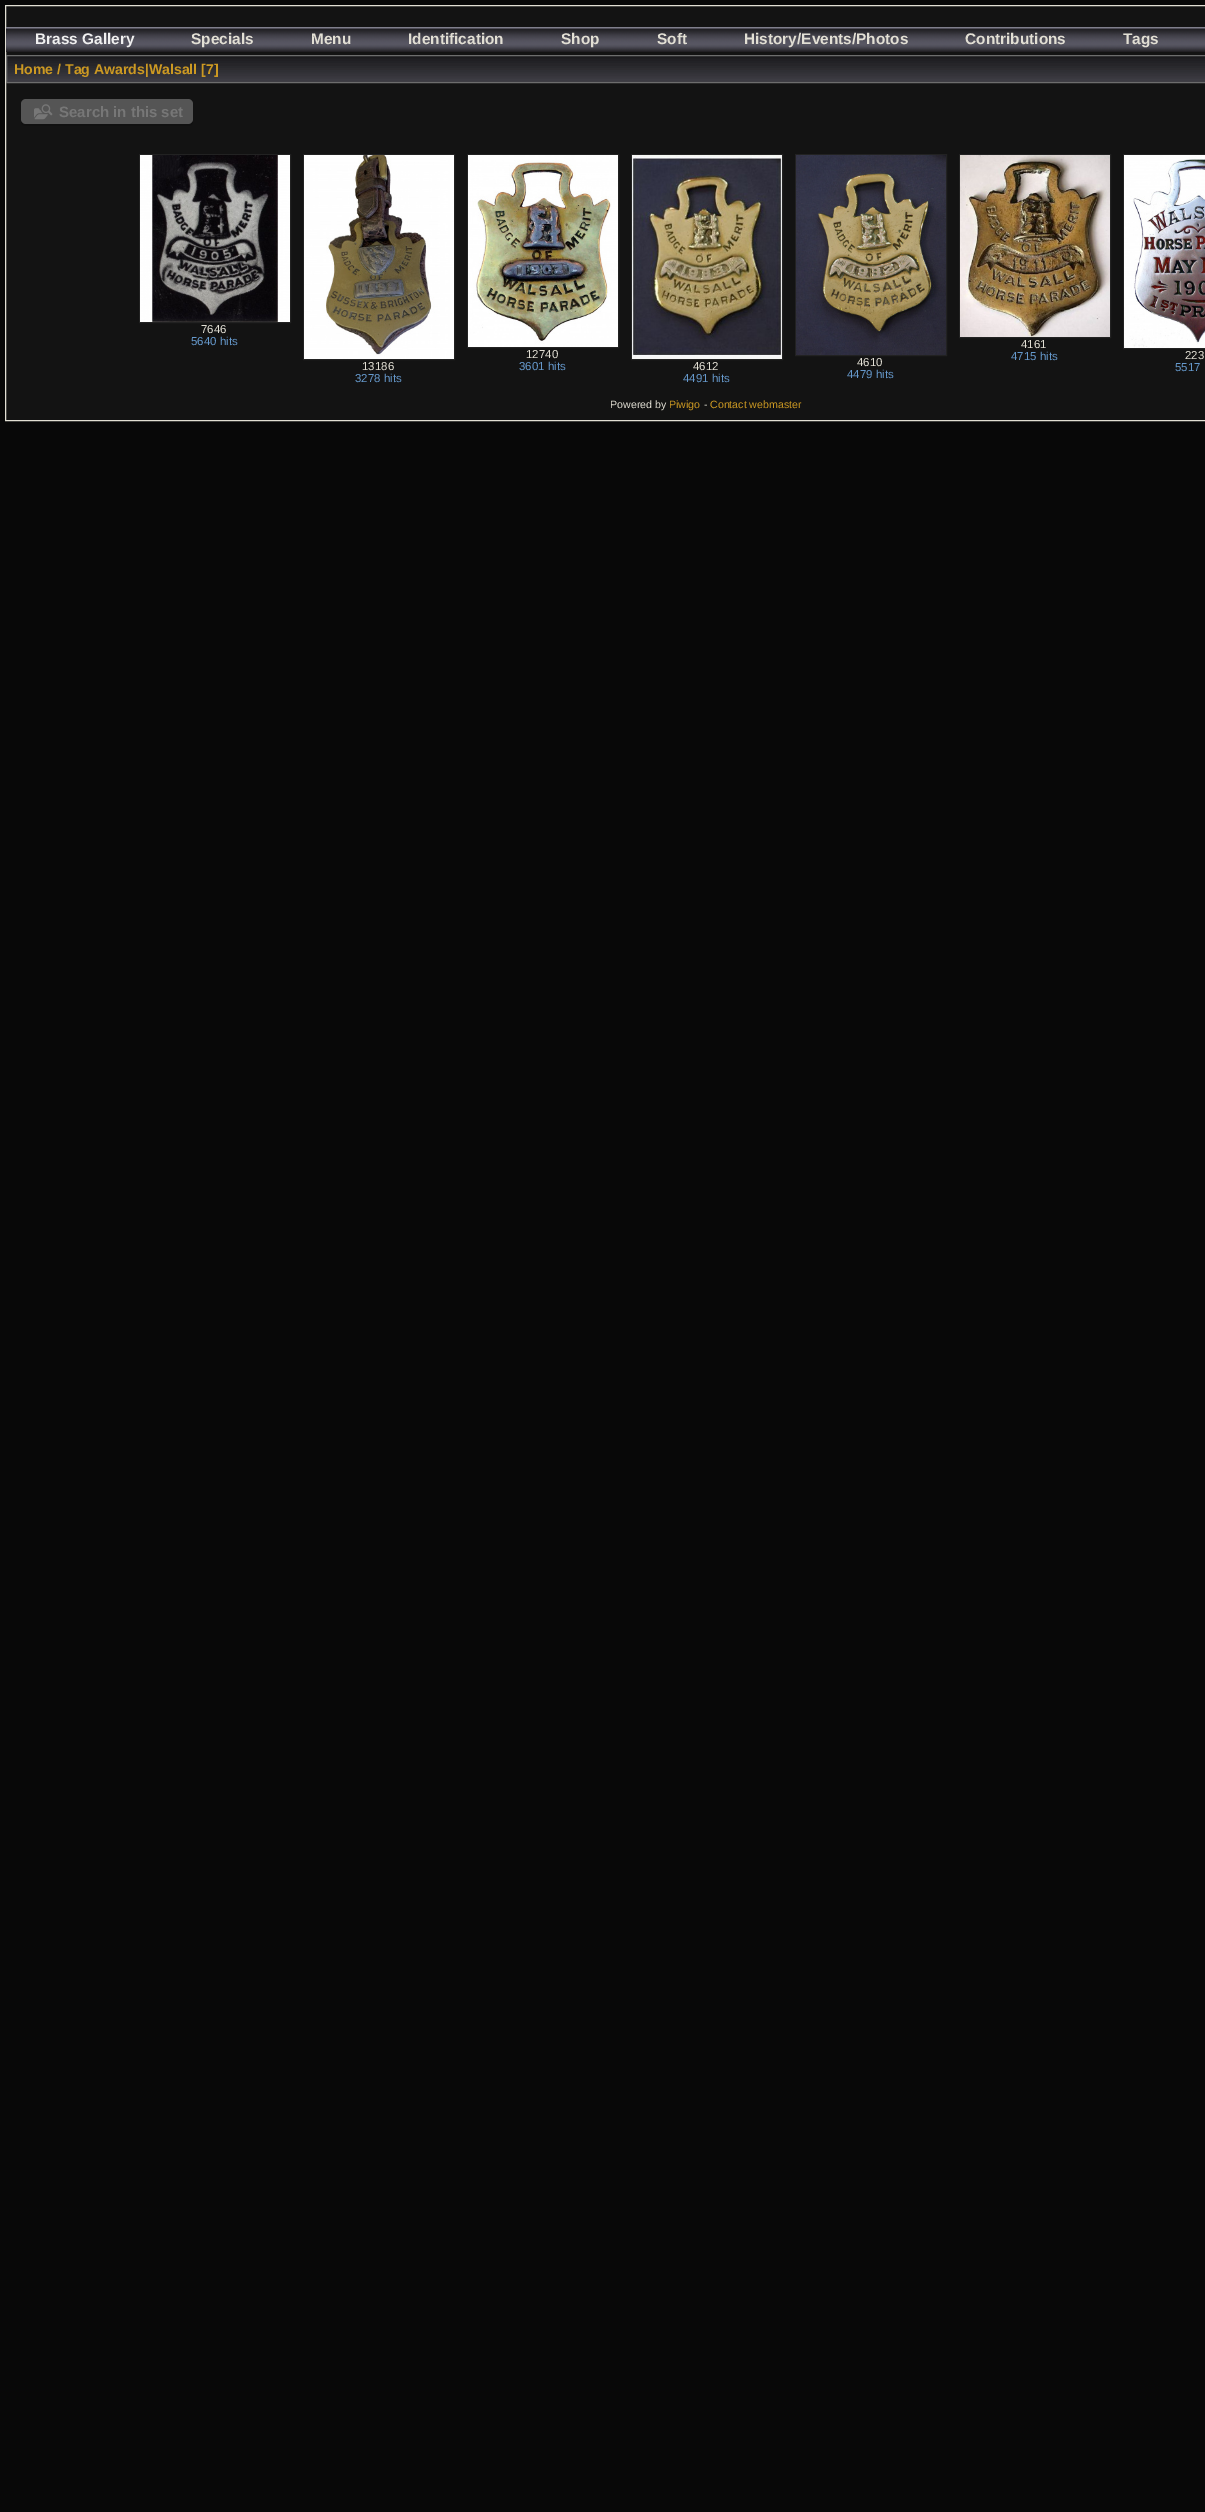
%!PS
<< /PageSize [1205 2512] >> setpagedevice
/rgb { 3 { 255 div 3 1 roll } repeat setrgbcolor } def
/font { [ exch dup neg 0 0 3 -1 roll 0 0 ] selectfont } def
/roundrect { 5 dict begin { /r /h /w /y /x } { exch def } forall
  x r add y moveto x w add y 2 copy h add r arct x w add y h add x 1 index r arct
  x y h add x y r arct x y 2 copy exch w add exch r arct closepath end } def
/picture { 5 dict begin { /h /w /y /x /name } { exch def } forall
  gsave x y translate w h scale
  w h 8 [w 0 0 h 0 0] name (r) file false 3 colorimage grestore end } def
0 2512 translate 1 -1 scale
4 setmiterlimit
8 8 8 rgb
0 0 1205 2512 rectfill
19 19 19 rgb
5.5 5.5 moveto 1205.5 5.5 lineto 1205.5 420.5 lineto 5.5 420.5 lineto closepath gsave fill grestore
226 223 212 rgb
stroke
(img/1.rgb) 6 27 1199 25 picture
(img/2.rgb) 7 56 1198 26 picture
109 109 109 rgb
6.5 55.5 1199 27 rectstroke
16 16 16 rgb
21 119 moveto 21 121 lineto 21 124 23 126 26 126 curveto 188 126 lineto 191 126 193 124 193 121 curveto 193 119 lineto 193 122 191 124 188 124 curveto 26 124 lineto 23 124 21 122 21 119 curveto closepath fill
85 85 85 rgb
21 99 172 25 5 roundrect fill
(img/3.rgb) 34 104 19 16 picture
34 34 34 rgb
139.5 154.5 151 168 rectstroke
(img/4.rgb) 140 155 150 167 picture
303.5 154.5 151 205 rectstroke
(img/5.rgb) 304 155 150 204 picture
467.5 154.5 151 193 rectstroke
(img/6.rgb) 468 155 150 192 picture
631.5 154.5 151 205 rectstroke
(img/7.rgb) 632 155 150 204 picture
795.5 154.5 151 201 rectstroke
(img/8.rgb) 796 155 150 200 picture
959.5 154.5 151 183 rectstroke
(img/9.rgb) 960 155 150 182 picture
1123.5 154.5 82 194 rectstroke
(img/10.rgb) 1124 155 81 193 picture
/LiberationSans-Bold 15.4 font
240 240 240 rgb
35 44 moveto (Brass Gallery) show
226 223 212 rgb
[
  [(Specials) 191 44]
  [(Menu) 311 44]
  [(Identification) 408 44]
  [(Shop) 561 44]
  [(Soft) 657 44]
  [(History/Events/Photos) 744 44]
  [(Contributions) 965 44]
  [(Tags) 1123 44]
] { aload pop moveto show } forall
/LiberationSans-Bold 14.1 font
204 153 34 rgb
14 74 moveto (Home / Tag Awards|Walsall [7]) show
/LiberationSans-Bold 15 font
119 119 119 rgb
59 117 moveto (Search in this set) show
/LiberationSans-Regular 11.5 font
226 223 212 rgb
201 333 moveto (7646) show
102 153 204 rgb
191 345 moveto (5640 hits) show
226 223 212 rgb
362 370 moveto (13186) show
102 153 204 rgb
355 382 moveto (3278 hits) show
226 223 212 rgb
526 358 moveto (12740) show
102 153 204 rgb
519 370 moveto (3601 hits) show
226 223 212 rgb
693 370 moveto (4612) show
102 153 204 rgb
683 382 moveto (4491 hits) show
226 223 212 rgb
857 366 moveto (4610) show
102 153 204 rgb
847 378 moveto (4479 hits) show
226 223 212 rgb
1021 348 moveto (4161) show
102 153 204 rgb
1011 360 moveto (4715 hits) show
226 223 212 rgb
1185 359 moveto (223) show
102 153 204 rgb
1175 371 moveto (5517) show
/LiberationSans-Regular 10.6 font
226 223 212 rgb
610 408 moveto (Powered by) show
204 153 34 rgb
669 408 moveto (Piwigo) show
226 223 212 rgb
704 408 moveto (-) show
204 153 34 rgb
710 408 moveto (Contact webmaster) show
showpage
